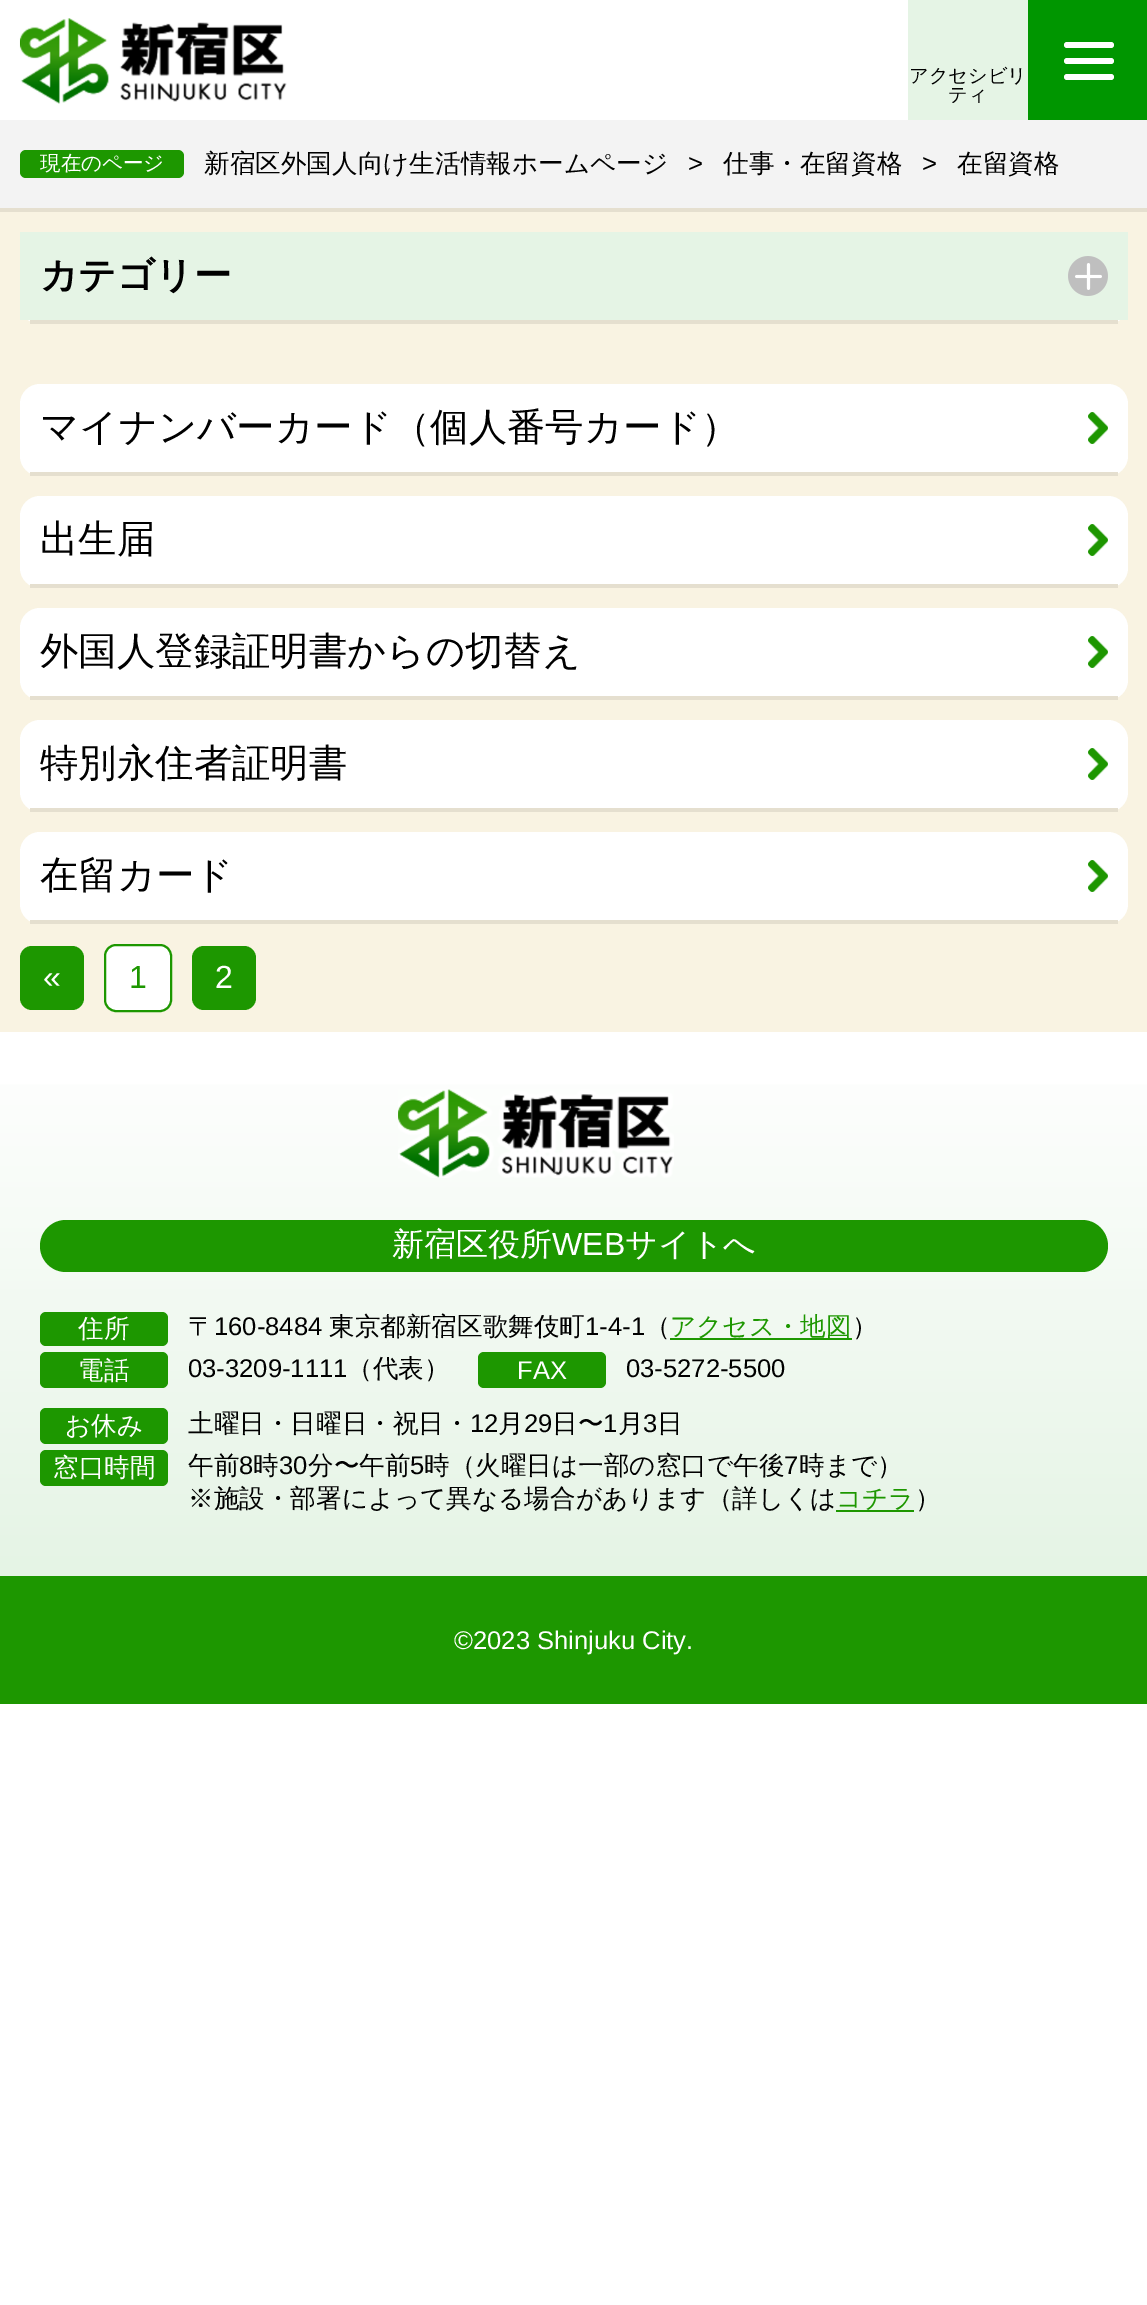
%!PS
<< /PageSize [1147 2305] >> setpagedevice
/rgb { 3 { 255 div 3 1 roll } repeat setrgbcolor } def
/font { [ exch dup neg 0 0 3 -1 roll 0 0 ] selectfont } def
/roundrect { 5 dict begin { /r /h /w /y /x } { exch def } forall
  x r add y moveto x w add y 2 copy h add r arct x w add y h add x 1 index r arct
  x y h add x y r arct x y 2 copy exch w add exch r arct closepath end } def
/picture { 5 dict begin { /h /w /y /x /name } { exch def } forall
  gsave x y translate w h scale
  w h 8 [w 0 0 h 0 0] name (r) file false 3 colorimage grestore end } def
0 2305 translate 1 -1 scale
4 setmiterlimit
255 255 255 rgb
0 0 1147 2305 rectfill
(img/1.rgb) 19 18 268 86 picture
229 244 229 rgb
908 0 120 120 rectfill
0 150 0 rgb
1028 0 119 120 rectfill
255 255 255 rgb
1064 58 50 6 3 roundrect fill
1064 42 50 6 3 roundrect fill
1064 74 50 6 3 roundrect fill
243 243 243 rgb
0 120 1147 88 rectfill
229 223 207 rgb
0 208 1147 4 rectfill
29 151 0 rgb
20 150 164 28 6 roundrect fill
249 243 226 rgb
0 212 1147 820 rectfill
255 255 255 rgb
20 232 1108 92 20 roundrect fill
229 223 207 rgb
30 320 1088 4 rectfill
229 244 229 rgb
20 232 1108 88 rectfill
(img/2.rgb) 1068 256 40 40 picture
255 255 255 rgb
20 384 1108 92 20 roundrect fill
229 223 207 rgb
30 472 1088 4 rectfill
(img/3.rgb) 1088 412 20 32 picture
255 255 255 rgb
20 496 1108 92 20 roundrect fill
229 223 207 rgb
30 584 1088 4 rectfill
(img/3.rgb) 1088 524 20 32 picture
255 255 255 rgb
20 608 1108 92 20 roundrect fill
229 223 207 rgb
30 696 1088 4 rectfill
(img/3.rgb) 1088 636 20 32 picture
255 255 255 rgb
20 720 1108 92 20 roundrect fill
229 223 207 rgb
30 808 1088 4 rectfill
(img/3.rgb) 1088 748 20 32 picture
255 255 255 rgb
20 832 1108 92 20 roundrect fill
229 223 207 rgb
30 920 1088 4 rectfill
(img/3.rgb) 1088 860 20 32 picture
29 151 0 rgb
20 946 64 64 12 roundrect fill
255 255 255 rgb
105 945 66 66 11 roundrect gsave fill grestore
29 151 0 rgb
2 setlinewidth
stroke
192 946 64 64 12 roundrect fill
gsave 0 1084 moveto 1147 1084 lineto 1147 1576 lineto 0 1576 lineto closepath clip newpath
<< /ShadingType 2 /ColorSpace /DeviceRGB /Coords [574 1576 574 1032] /Extend [true true] /Function << /FunctionType 2 /Domain [0 1] /C0 [0.898 0.957 0.898] /C1 [1 1 1] /N 1 >> >> shfill grestore
(img/4.rgb) 398 1089 276 89 picture
40 1220 1068 52 26 roundrect fill
40 1312 128 34 6 roundrect fill
670 1338 182 2 rectfill
40 1352 128 36 6 roundrect fill
478 1352 128 36 6 roundrect fill
40 1408 128 36 6 roundrect fill
40 1450 128 36 6 roundrect fill
836 1510 78 2 rectfill
0 1576 1147 128 rectfill
/WenQuanYiZenHei-Medium 19.25 font
0 0 0 rgb
909 82 moveto (アクセシビリ) show
948 101 moveto (ティ) show
/WenQuanYiZenHei-Medium 20.5 font
255 255 255 rgb
40 170 moveto (現在のページ) show
/WenQuanYiZenHei-Medium 25.6 font
0 0 0 rgb
204 172 moveto (新宿区外国人向け生活情報ホームページ) show
/LiberationSans-Regular 25.6 font
688 172 moveto (>) show
/WenQuanYiZenHei-Medium 25.6 font
723 172 moveto (仕事・在留資格) show
/LiberationSans-Regular 25.6 font
922 172 moveto (>) show
/WenQuanYiZenHei-Medium 25.6 font
957 172 moveto (在留資格) show
/WenQuanYiZenHei-Bold 37.5 font
40 288 moveto (カテゴリー) show
/WenQuanYiZenHei-Medium 38.4 font
[
  [(マイナンバーカード（個人番号カード）) 40 440]
  [(出生届) 40 552]
  [(外国人登録証明書からの切替え) 40 664]
  [(特別永住者証明書) 40 776]
  [(在留カード) 40 888]
] { aload pop moveto show } forall
/LiberationSans-Regular 32 font
255 255 255 rgb
43 988 moveto («) show
29 151 0 rgb
129 988 moveto (1) show
255 255 255 rgb
215 988 moveto (2) show
/WenQuanYiZenHei-Medium 32 font
392 1255 moveto (新宿区役所) show
/LiberationSans-Regular 32 font
552 1255 moveto (WEB) show
/WenQuanYiZenHei-Medium 32 font
625 1255 moveto (サイトへ) show
/WenQuanYiZenHei-Medium 25.6 font
78 1337 moveto (住所) show
0 0 0 rgb
188 1335 moveto (〒) show
/LiberationSans-Regular 25.6 font
214 1335 moveto (160-8484) show
/WenQuanYiZenHei-Medium 25.6 font
329 1335 moveto (東京都新宿区歌舞伎町) show
/LiberationSans-Regular 25.6 font
585 1335 moveto (1-4-1) show
/WenQuanYiZenHei-Medium 25.6 font
645 1335 moveto (（) show
29 151 0 rgb
670 1335 moveto (アクセス・地図) show
0 0 0 rgb
852 1335 moveto (）) show
255 255 255 rgb
78 1379 moveto (電話) show
/LiberationSans-Regular 25.6 font
0 0 0 rgb
188 1377 moveto (03-3209-1111) show
/WenQuanYiZenHei-Medium 25.6 font
347 1377 moveto (（代表）) show
/LiberationSans-Regular 25.6 font
255 255 255 rgb
517 1379 moveto (FAX) show
0 0 0 rgb
626 1377 moveto (03-5272-5500) show
/WenQuanYiZenHei-Medium 25.6 font
255 255 255 rgb
65 1434 moveto (お休み) show
0 0 0 rgb
188 1432 moveto (土曜日・日曜日・祝日・) show
/LiberationSans-Regular 25.6 font
470 1432 moveto (12) show
/WenQuanYiZenHei-Medium 25.6 font
498 1432 moveto (月) show
/LiberationSans-Regular 25.6 font
524 1432 moveto (29) show
/WenQuanYiZenHei-Medium 25.6 font
552 1432 moveto (日〜) show
/LiberationSans-Regular 25.6 font
603 1432 moveto (1) show
/WenQuanYiZenHei-Medium 25.6 font
618 1432 moveto (月) show
/LiberationSans-Regular 25.6 font
643 1432 moveto (3) show
/WenQuanYiZenHei-Medium 25.6 font
657 1432 moveto (日) show
255 255 255 rgb
53 1476 moveto (窓口時間) show
0 0 0 rgb
188 1474 moveto (午前) show
/LiberationSans-Regular 25.6 font
239 1474 moveto (8) show
/WenQuanYiZenHei-Medium 25.6 font
253 1474 moveto (時) show
/LiberationSans-Regular 25.6 font
279 1474 moveto (30) show
/WenQuanYiZenHei-Medium 25.6 font
308 1474 moveto (分〜午前) show
/LiberationSans-Regular 25.6 font
410 1474 moveto (5) show
/WenQuanYiZenHei-Medium 25.6 font
424 1474 moveto (時（火曜日は一部の窓口で午後) show
/LiberationSans-Regular 25.6 font
784 1474 moveto (7) show
/WenQuanYiZenHei-Medium 25.6 font
799 1474 moveto (時まで）) show
188 1507 moveto (※施設・部署によって異なる場合があります（詳しくは) show
29 151 0 rgb
836 1507 moveto (コチラ) show
0 0 0 rgb
915 1507 moveto (）) show
/LiberationSans-Regular 25.6 font
255 255 255 rgb
454 1649 moveto (©2023 Shinjuku City.) show
showpage
